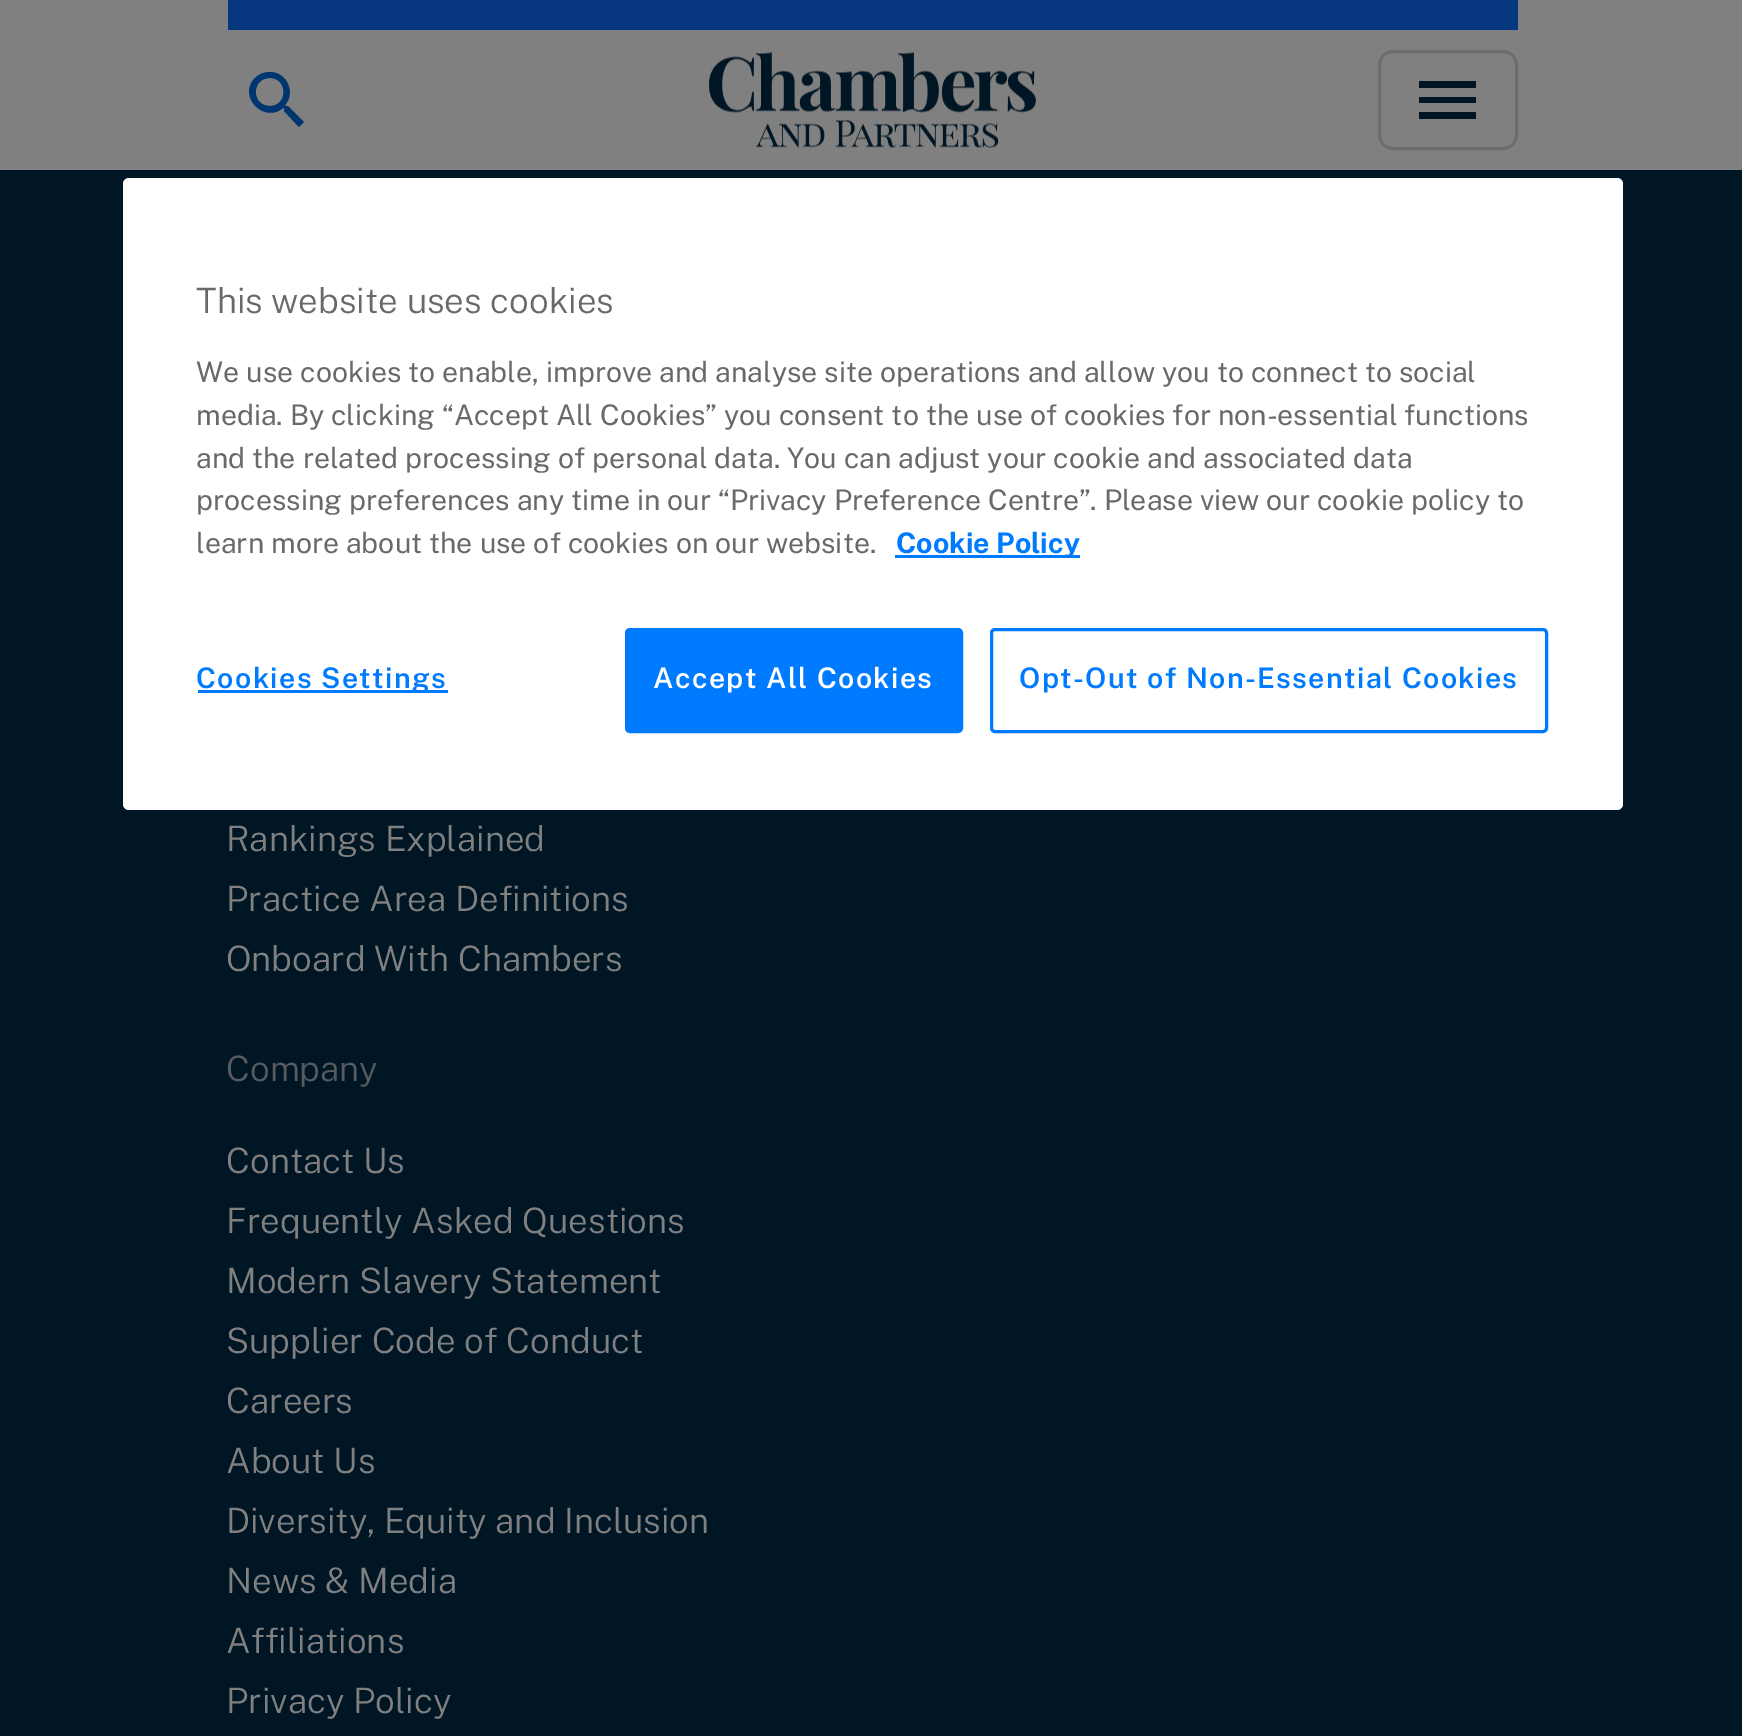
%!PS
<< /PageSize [1742 1736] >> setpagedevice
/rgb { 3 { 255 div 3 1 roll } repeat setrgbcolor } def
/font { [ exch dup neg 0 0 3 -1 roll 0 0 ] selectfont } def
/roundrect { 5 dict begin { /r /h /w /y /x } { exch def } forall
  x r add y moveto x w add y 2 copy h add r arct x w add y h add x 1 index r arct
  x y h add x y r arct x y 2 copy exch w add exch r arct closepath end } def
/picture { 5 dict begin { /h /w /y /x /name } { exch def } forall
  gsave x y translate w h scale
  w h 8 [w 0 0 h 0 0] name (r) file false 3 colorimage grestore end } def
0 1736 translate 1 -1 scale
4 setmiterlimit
128 128 128 rgb
0 0 1742 1736 rectfill
0 22 37 rgb
0 170 1742 1566 rectfill
255 255 255 rgb
123 178 1500 632 6 roundrect fill
0 123 253 rgb
895 555 185 3 rectfill
198 690 250 3 rectfill
0 123 255 rgb
626.5 629.5 335 102 3.5 roundrect gsave fill grestore
3 setlinewidth
stroke
991.5 629.5 555 102 3.5 roundrect stroke
7 55 127 rgb
228 0 1290 30 rectfill
0 54 112 rgb
270 72 moveto 287 72 296 93 285 105 curveto 286 106 lineto 288 106 lineto 304 122 lineto 299 127 lineto 284 111 lineto 284 108 lineto 283 108 lineto 264 124 237 96 255 78 curveto 259 74 264 72 270 72 curveto 270 78 moveto 251 78 251 106 270 106 curveto 288 106 288 78 270 78 curveto closepath fill
(img/1.rgb) 709 52 327 96 picture
109 109 109 rgb
1379.5 51.5 137 97 13.5 roundrect stroke
0 22 37 rgb
1419 81 moveto 1476 81 lineto 1476 88 lineto 1419 88 lineto 1419 81 lineto 1419 97 moveto 1476 97 lineto 1476 103 lineto 1419 103 lineto 1419 97 lineto 1419 112 moveto 1476 112 lineto 1476 119 lineto 1419 119 lineto closepath fill
/PublicSans-Light 35 font
105 105 105 rgb
196 313 moveto (This website uses cookies) show
/PublicSans-Regular 28.45 font
[
  [(We use cookies to enable, improve and analyse site operations and allow you to connect to social) 196 382]
  [(media. By clicking “Accept All Cookies” you consent to the use of cookies for non-essential functions) 196 425]
  [(and the related processing of personal data. You can adjust your cookie and associated data) 196 468]
  [(processing preferences any time in our “Privacy Preference Centre”. Please view our cookie policy to) 196 510]
  [(learn more about the use of cookies on our website.) 196 553]
] { aload pop moveto show } forall
/PublicSans-Bold 28.45 font
0 123 253 rgb
896 553 moveto (Cookie Policy) show
/PublicSans-SemiBold 28.45 font
196 688 moveto 1.4 0 (Cookies Settings) ashow
255 255 255 rgb
653 688 moveto 1.4 0 (Accept All Cookies) ashow
0 123 253 rgb
1019 688 moveto 1.4 0 (Opt-Out of Non-Essential Cookies) ashow
/PublicSans-Light 35 font
128 128 128 rgb
[
  [(Rankings Explained) 226 851]
  [(Practice Area Definitions) 226 911]
  [(Onboard With Chambers) 226 971]
] { aload pop moveto show } forall
87 91 95 rgb
226 1081 moveto (Company) show
128 128 128 rgb
[
  [(Contact Us) 226 1173]
  [(Frequently Asked Questions) 226 1233]
  [(Modern Slavery Statement) 226 1293]
  [(Supplier Code of Conduct) 226 1353]
  [(Careers) 226 1413]
  [(About Us) 226 1473]
  [(Diversity, Equity and Inclusion) 226 1533]
  [(News & Media) 226 1593]
  [(Affiliations) 226 1653]
  [(Privacy Policy) 226 1713]
] { aload pop moveto show } forall
showpage
